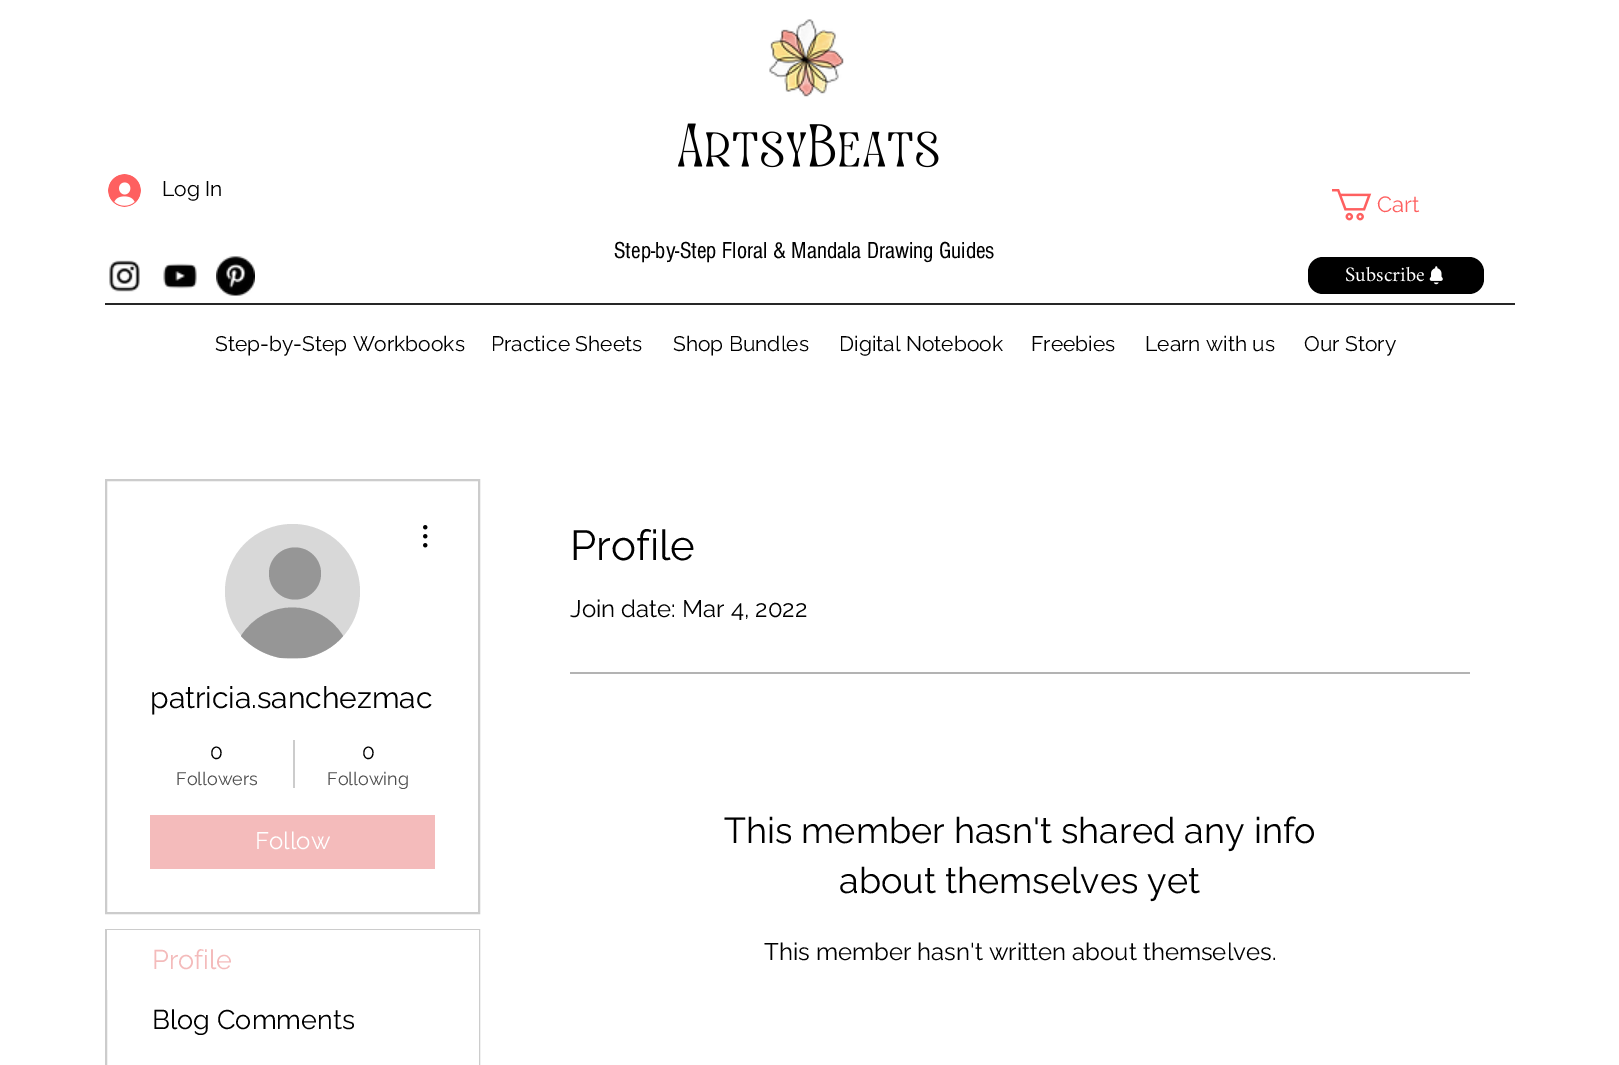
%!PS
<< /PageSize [1619 1065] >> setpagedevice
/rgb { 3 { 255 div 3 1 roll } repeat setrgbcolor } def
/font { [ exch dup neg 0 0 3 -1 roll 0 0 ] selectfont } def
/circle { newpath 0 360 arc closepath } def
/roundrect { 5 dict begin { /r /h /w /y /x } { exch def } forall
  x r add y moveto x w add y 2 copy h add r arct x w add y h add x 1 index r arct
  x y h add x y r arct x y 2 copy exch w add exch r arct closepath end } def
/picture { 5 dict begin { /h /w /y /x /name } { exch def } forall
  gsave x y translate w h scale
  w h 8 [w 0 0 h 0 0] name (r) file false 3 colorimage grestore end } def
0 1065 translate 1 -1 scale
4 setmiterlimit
255 255 255 rgb
0 0 1619 1065 rectfill
(img/1.rgb) 769 19 75 78 picture
(img/2.rgb) 678 123 261 45 picture
(img/3.rgb) 108 174 33 33 picture
(img/4.rgb) 1332 189 40 32 picture
(img/5.rgb) 109 260 31 32 picture
(img/6.rgb) 163 263 34 26 picture
(img/7.rgb) 216 256 39 40 picture
0 0 0 rgb
1308 257 176 37 15 roundrect fill
(img/8.rgb) 1429 266 14 19 picture
38 38 38 rgb
105 303 1410 2 rectfill
204 204 204 rgb
2 setlinewidth
106 480 373 433 rectstroke
216 216 216 rgb
292.5 591.5 67.5 circle fill
150 150 150 rgb
295 573.5 26 circle fill
281 658 moveto 265 655 251 647 241 636 curveto 265 598 320 598 343 636 curveto 334 647 320 655 304 658 curveto closepath fill
(img/9.rgb) 423 525 5 23 picture
204 204 204 rgb
293 740 2 48 rectfill
244 187 187 rgb
150 815 285 54 rectfill
204 204 204 rgb
106 930 373 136 rectstroke
[
  [107 930 372 60 255 255 255]
  [478 990 1 75 255 255 255]
  [570 672 900 2 179 179 179]
] { aload pop rgb rectfill } forall
/Raleway-Regular 21 font
0 0 0 rgb
162 196 moveto (Log In) show
/Raleway-Regular 22 font
254 96 96 rgb
1377 212 moveto (Cart) show
/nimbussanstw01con-Regular 24 font
0 0 0 rgb
614 258 moveto (Step-by-Step Floral & Mandala Drawing Guides) show
/Amiri-Regular 21 font
255 255 255 rgb
1345 281 moveto (Subscribe) show
/Raleway-Regular 21 font
0 0 0 rgb
[
  [(Step-by-Step Workbooks) 215 351]
  [(Practice Sheets) 491 351]
  [(Shop Bundles) 673 351]
  [(Digital Notebook) 839 351]
  [(Freebies) 1031 351]
  [(Learn with us) 1145 351]
  [(Our Story) 1304 351]
] { aload pop moveto show } forall
/Raleway-Regular 30 font
150 708 moveto (patricia.sanchezmac) show
/Raleway-Regular 21 font
210 759 moveto (0) show
/Raleway-Regular 18 font
77 77 77 rgb
176 785 moveto (Followers) show
/Raleway-Regular 21 font
0 0 0 rgb
362 759 moveto (0) show
/Raleway-Regular 18 font
77 77 77 rgb
327 785 moveto (Following) show
/Raleway-Regular 24 font
255 255 255 rgb
255 849 moveto (Follow) show
/Raleway-Regular 27 font
244 187 187 rgb
152 969 moveto (Profile) show
0 0 0 rgb
152 1029 moveto (Blog Comments) show
/Raleway-Regular 42 font
570 560 moveto (Profile) show
/Raleway-Regular 24 font
570 617 moveto (Join date: Mar 4, 2022) show
/Raleway-Regular 36 font
724 843 moveto (This member hasn't shared any info) show
839 893 moveto (about themselves yet) show
/Raleway-Regular 24 font
764 960 moveto (This member hasn't written about themselves.) show
showpage
